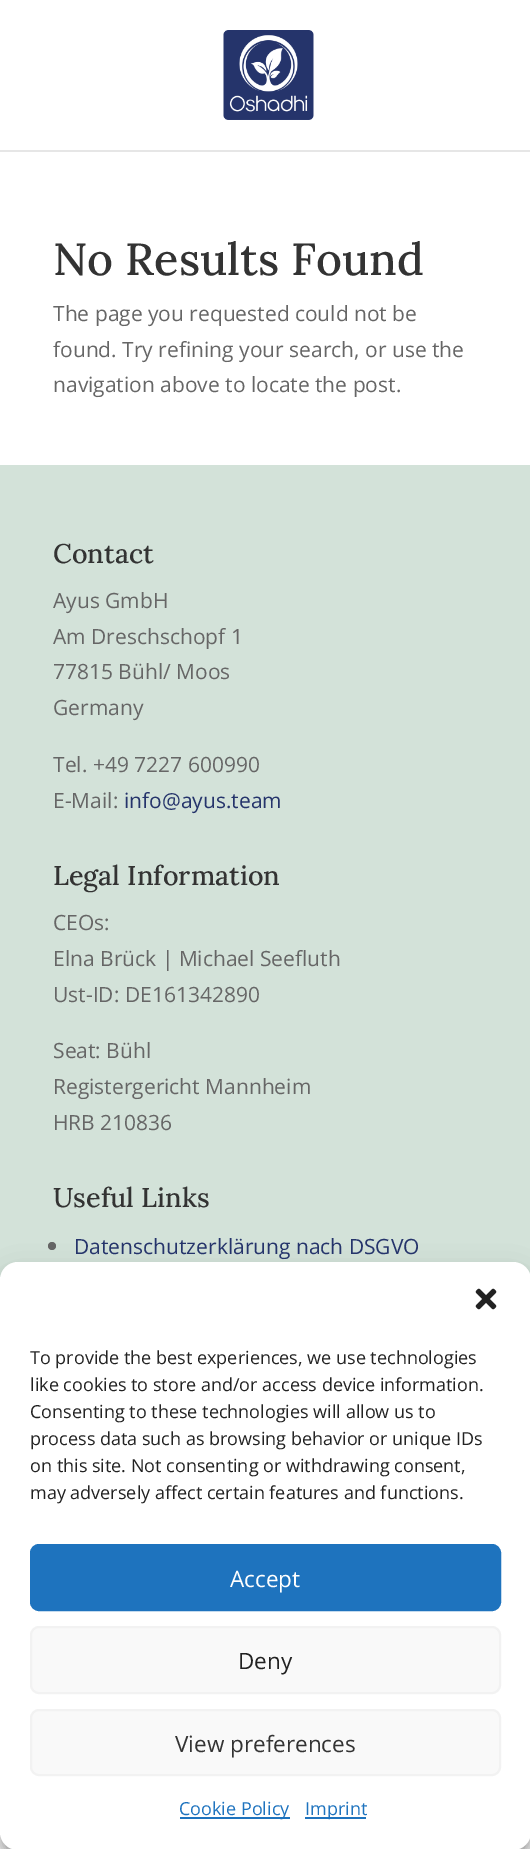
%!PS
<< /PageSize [530 1849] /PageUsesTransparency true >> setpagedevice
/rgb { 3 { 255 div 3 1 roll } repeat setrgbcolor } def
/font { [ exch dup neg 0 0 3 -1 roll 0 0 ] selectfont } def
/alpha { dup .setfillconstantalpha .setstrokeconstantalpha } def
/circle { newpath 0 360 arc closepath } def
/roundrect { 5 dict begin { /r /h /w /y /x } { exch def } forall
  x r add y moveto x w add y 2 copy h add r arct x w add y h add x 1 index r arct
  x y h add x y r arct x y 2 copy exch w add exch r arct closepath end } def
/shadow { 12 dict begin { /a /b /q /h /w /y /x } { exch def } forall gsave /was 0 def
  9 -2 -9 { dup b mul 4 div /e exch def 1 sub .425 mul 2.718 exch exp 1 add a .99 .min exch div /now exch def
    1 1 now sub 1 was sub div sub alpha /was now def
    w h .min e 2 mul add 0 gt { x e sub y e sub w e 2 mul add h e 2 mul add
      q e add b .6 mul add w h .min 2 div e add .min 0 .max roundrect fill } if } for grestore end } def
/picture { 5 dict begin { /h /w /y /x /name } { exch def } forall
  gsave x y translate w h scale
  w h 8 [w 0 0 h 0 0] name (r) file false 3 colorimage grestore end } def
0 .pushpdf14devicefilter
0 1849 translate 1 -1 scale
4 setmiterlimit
255 255 255 rgb
0 0 530 1849 rectfill
230 230 230 rgb
0 150 530 2 rectfill
(img/1.rgb) 223 30 91 90 picture
211 226 217 rgb
0 465 530 815 rectfill
102 102 102 rgb
52 1246 4 circle fill
0 0 0 rgb
0 1271 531 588 18 4.5 0.23 shadow
0 1277 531 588 18 15 0.19 shadow
255 255 255 rgb
0 1262 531 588 18 roundrect fill
(img/2.rgb) 475 1288 22 22 picture
30 115 190 rgb
31 1545 469 65 8 roundrect gsave fill grestore
2 setlinewidth
stroke
249 249 249 rgb
31 1627 469 66 8 roundrect gsave fill grestore
242 242 242 rgb
stroke
249 249 249 rgb
31 1710 469 65 8 roundrect gsave fill grestore
242 242 242 rgb
stroke
30 115 190 rgb
180 1817 110 2 rectfill
305 1817 61 2 rectfill
/Lora-Medium 45 font
51 51 51 rgb
53 275 moveto (No Results Found) show
/OpenSans-Regular 21 font
102 102 102 rgb
[
  [(The page you requested could not be) 53 321]
  [(found. Try refining your search, or use the) 53 357]
  [(navigation above to locate the post.) 53 392]
] { aload pop moveto show } forall
/Lora-Medium 27 font
51 51 51 rgb
53 563 moveto (Contact) show
/OpenSans-Regular 21 font
102 102 102 rgb
[
  [(Ayus GmbH) 53 608]
  [(Am Dreschschopf 1) 53 644]
  [(77815 Bühl/ Moos) 53 679]
  [(Germany) 53 715]
  [(Tel. +49 7227 600990) 53 772]
  [(E-Mail:) 53 808]
] { aload pop moveto show } forall
37 52 107 rgb
124 808 moveto (info@ayus.team) show
/Lora-Medium 27 font
51 51 51 rgb
53 885 moveto (Legal Information) show
/OpenSans-Regular 21 font
102 102 102 rgb
[
  [(CEOs:) 53 930]
  [(Elna Brück | Michael Seefluth) 53 966]
  [(Ust-ID: DE161342890) 53 1002]
  [(Seat: Bühl) 53 1058]
  [(Registergericht Mannheim) 53 1094]
  [(HRB 210836) 53 1130]
] { aload pop moveto show } forall
/Lora-Medium 27 font
51 51 51 rgb
53 1207 moveto (Useful Links) show
/OpenSans-Regular 21 font
37 52 107 rgb
74 1254 moveto (Datenschutzerklärung nach DSGVO) show
/OpenSans-Regular 18 font
34 34 34 rgb
[
  [(To provide the best experiences, we use technologies) 30 1364]
  [(like cookies to store and/or access device information.) 30 1391]
  [(Consenting to these technologies will allow us to) 30 1418]
  [(process data such as browsing behavior or unique IDs) 30 1445]
  [(on this site. Not consenting or withdrawing consent,) 30 1472]
  [(may adversely affect certain features and functions.) 30 1499]
] { aload pop moveto show } forall
/OpenSans-Regular 22.5 font
255 255 255 rgb
230 1587 moveto (Accept) show
34 34 34 rgb
238 1669 moveto (Deny) show
51 51 51 rgb
175 1752 moveto (View preferences) show
/OpenSans-Regular 18 font
30 115 190 rgb
179 1815 moveto (Cookie Policy) show
305 1815 moveto (Imprint) show
.poppdf14devicefilter showpage
